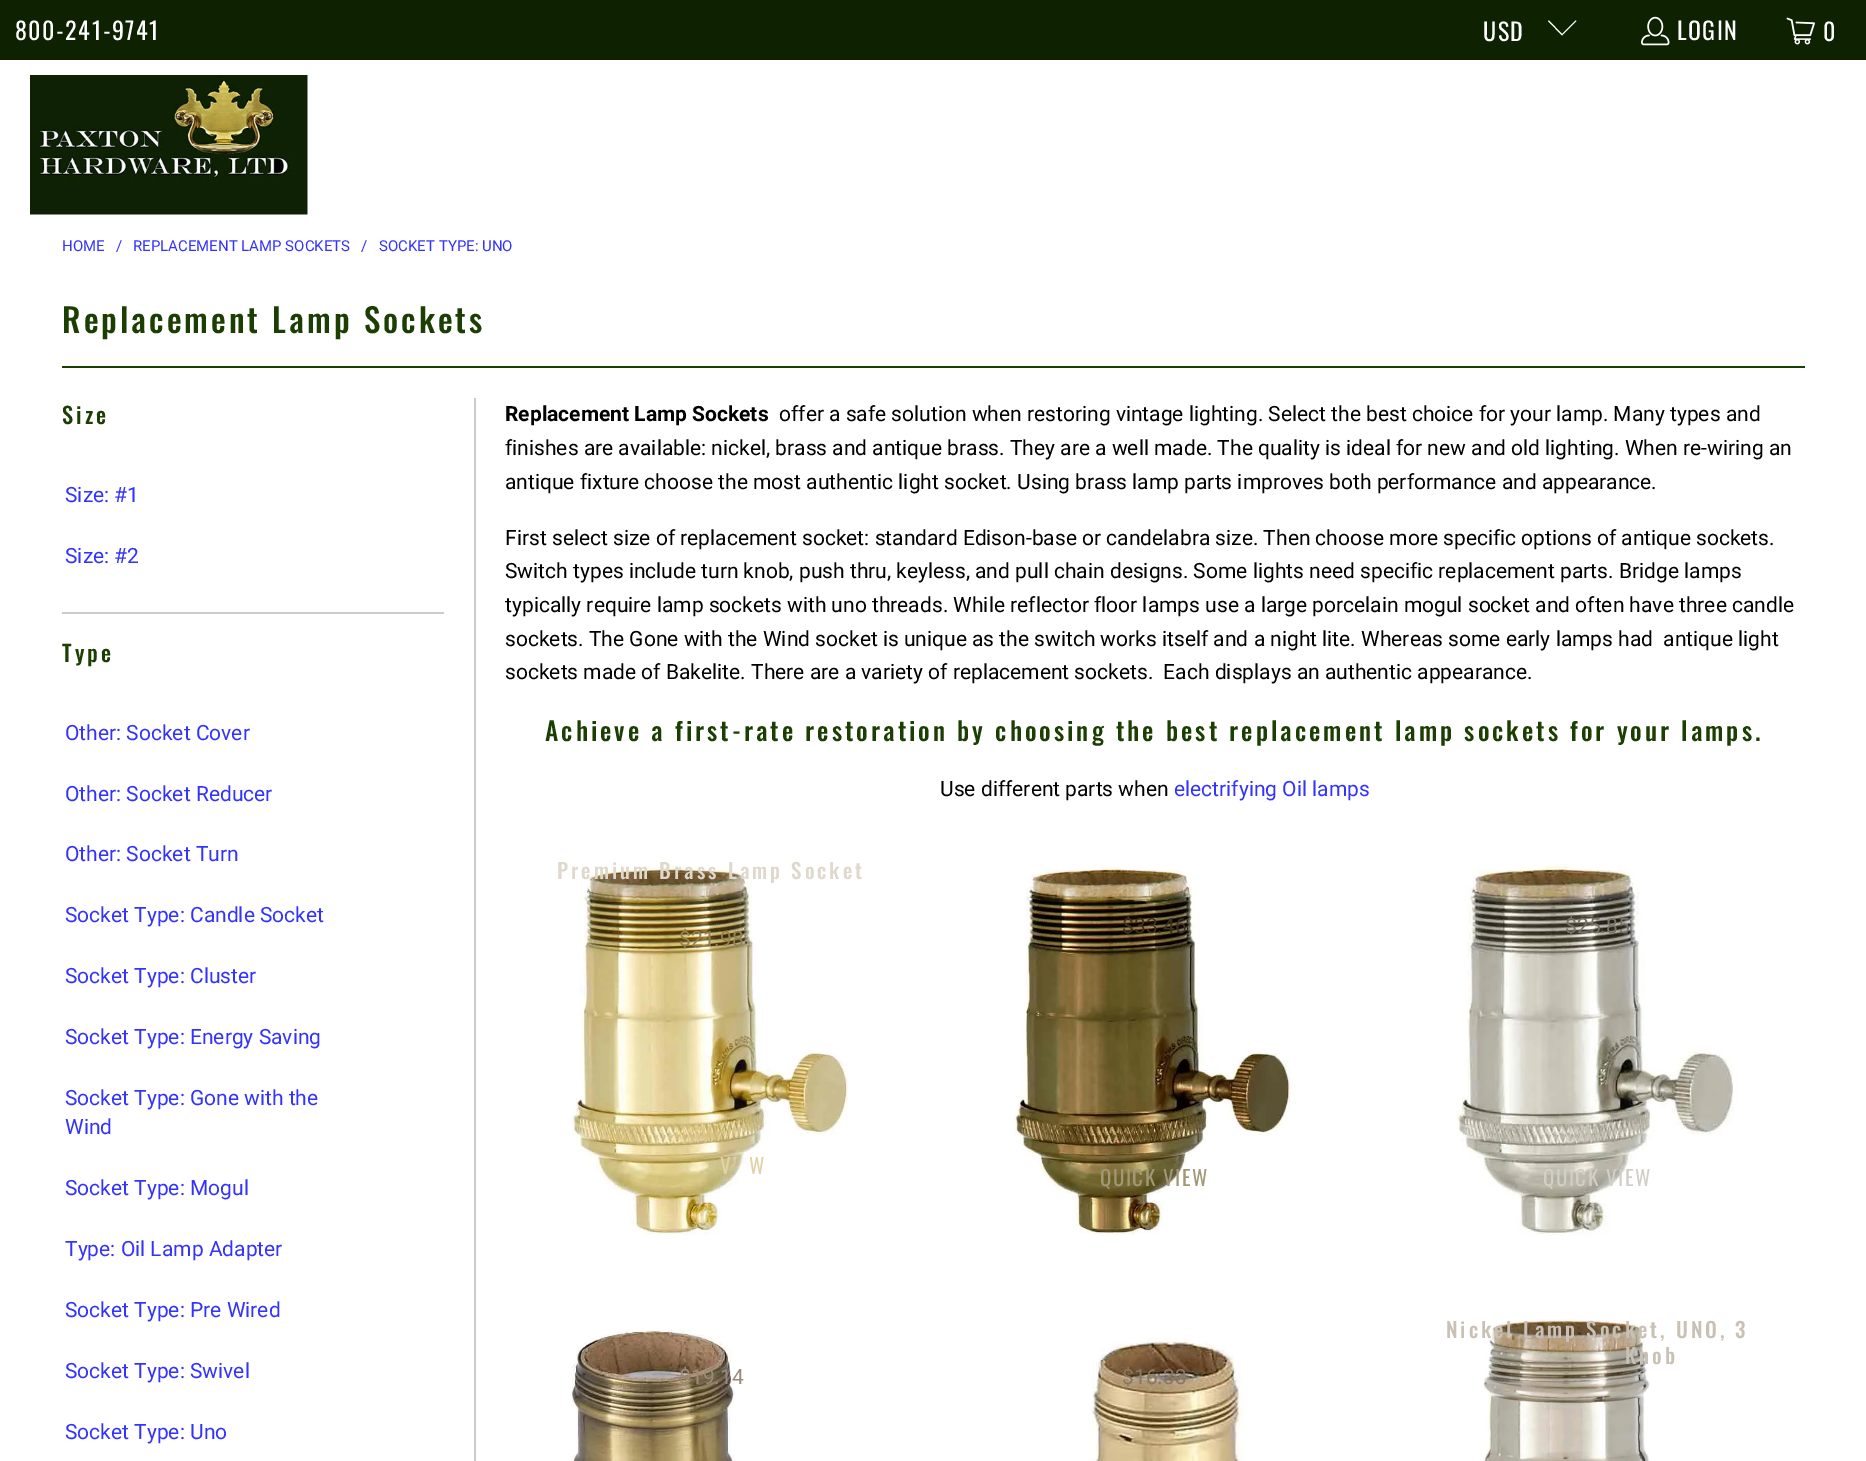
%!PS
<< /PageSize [1866 1461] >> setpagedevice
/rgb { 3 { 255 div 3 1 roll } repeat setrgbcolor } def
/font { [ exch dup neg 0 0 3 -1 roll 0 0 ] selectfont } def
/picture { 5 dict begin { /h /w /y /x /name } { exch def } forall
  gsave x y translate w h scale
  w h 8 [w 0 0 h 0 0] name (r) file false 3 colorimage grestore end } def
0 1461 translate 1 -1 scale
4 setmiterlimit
255 255 255 rgb
0 0 1866 1461 rectfill
14 33 1 rgb
0 0 1866 60 rectfill
255 255 255 rgb
1562 35.5 moveto 1548 21 lineto 1549 20.5 lineto 1562 34 lineto 1575.5 20.5 lineto 1576.5 21 lineto closepath fill
(img/1.rgb) 1641 16 29 30 picture
(img/2.rgb) 1786 17 29 28 picture
(img/3.rgb) 30 75 278 140 picture
[
  [62 366 1743 2 27 62 3]
  [474 398 2 1063 204 204 204]
  [62 612 382 2 204 204 204]
] { aload pop rgb rectfill } forall
(img/4.rgb) 572 864 276 372 picture
(img/5.rgb) 1014 866 282 369 picture
(img/6.rgb) 1455 864 279 372 picture
(img/7.rgb) 570 1330 165 131 picture
(img/8.rgb) 1089 1338 156 123 picture
(img/9.rgb) 1483 1320 167 141 picture
/Oswald-Regular 24 font
255 255 255 rgb
15 40 moveto 1.5 0 (800-241-9741) ashow
1483 41 moveto 1.5 0 (USD) ashow
1677 40 moveto 1.5 0 (LOGIN) ashow
1823 41 moveto 1.5 0 (0) ashow
/Roboto-Regular 15 font
51 51 255 rgb
[
  [(HOME) 62 251]
  [(/) 116 251]
  [(REPLACEMENT LAMP SOCKETS) 133 251]
  [(/) 361 251]
  [(SOCKET TYPE: UNO) 379 251]
] { aload pop moveto show } forall
/Oswald-Medium 33 font
27 62 3 rgb
62 333 moveto 3 0 (Replacement Lamp Sockets) ashow
/Oswald-Medium 22.5 font
62 424 moveto 3 0 (Size) ashow
/Roboto-Regular 21 font
51 51 255 rgb
65 502 moveto (Size: #1) show
65 563 moveto (Size: #2) show
/Oswald-Medium 22.5 font
27 62 3 rgb
62 662 moveto 3 0 (Type) ashow
/Roboto-Regular 21 font
51 51 255 rgb
[
  [(Other: Socket Cover) 65 740]
  [(Other: Socket Reducer) 65 801]
  [(Other: Socket Turn) 65 861]
  [(Socket Type: Candle Socket) 65 922]
  [(Socket Type: Cluster) 65 983]
  [(Socket Type: Energy Saving) 65 1044]
  [(Socket Type: Gone with the) 65 1105]
  [(Wind) 65 1134]
  [(Socket Type: Mogul) 65 1195]
  [(Type: Oil Lamp Adapter) 65 1256]
  [(Socket Type: Pre Wired) 65 1317]
  [(Socket Type: Swivel) 65 1378]
  [(Socket Type: Uno) 65 1439]
] { aload pop moveto show } forall
/Roboto-Bold 21 font
0 0 0 rgb
505 421 moveto (Replacement Lamp Sockets) show
/Roboto-Regular 21 font
[
  [(offer a safe solution when restoring vintage lighting. Select the best choice for your lamp. Many types and) 779 421]
  [(finishes are available: nickel, brass and antique brass. They are a well made. The quality is ideal for new and old lighting. When re-wiring an) 505 455]
  [(antique fixture choose the most authentic light socket. Using brass lamp parts improves both performance and appearance.) 505 489]
  [(First select size of replacement socket: standard Edison-base or candelabra size. Then choose more specific options of antique sockets.) 505 545]
  [(Switch types include turn knob, push thru, keyless, and pull chain designs. Some lights need specific replacement parts. Bridge lamps) 505 578]
  [(typically require lamp sockets with uno threads. While reflector floor lamps use a large porcelain mogul socket and often have three candle) 505 612]
  [(sockets. The Gone with the Wind socket is unique as the switch works itself and a night lite. Whereas some early lamps had  antique light) 505 646]
  [(sockets made of Bakelite. There are a variety of replacement sockets.  Each displays an authentic appearance.) 505 679]
] { aload pop moveto show } forall
/Oswald-Medium 25.5 font
27 62 3 rgb
545 741 moveto 3 0 (Achieve a first-rate restoration by choosing the best replacement lamp sockets for your lamps.) ashow
/Roboto-Regular 21 font
0 0 0 rgb
940 796 moveto (Use different parts when) show
51 51 255 rgb
1174 796 moveto (electrifying Oil lamps) show
/Oswald-Medium 21 font
222 216 205 rgb
557 879 moveto 3 0 (Premium Brass Lamp Socket) ashow
/Roboto-Regular 21 font
148 130 78 rgb
679 946 moveto ($21.98) show
/Oswald-Regular 21 font
223 212 165 rgb
720 1174 moveto 1.5 0 (V) ashow
749 1174 moveto 1.5 0 (W) ashow
/Roboto-Regular 21 font
61 49 29 rgb
1122 933 moveto ($33.46) show
/Oswald-Regular 21 font
161 152 118 rgb
1100 1186 moveto 1.5 0 (QUICK VIEW) ashow
/Roboto-Regular 21 font
119 115 104 rgb
1565 933 moveto ($25.85) show
/Oswald-Regular 21 font
210 207 199 rgb
1543 1186 moveto 1.5 0 (QUICK VIEW) ashow
/Roboto-Regular 21 font
153 139 120 rgb
679 1384 moveto ($19.14) show
139 119 95 rgb
1122 1384 moveto ($16.33) show
/Oswald-Medium 21 font
201 193 181 rgb
1446 1338 moveto 3 0 (Nickel Lamp Socket, UNO, 3) ashow
1625 1364 moveto 3 0 (Knob) ashow
/Roboto-Regular 21 font
174 166 149 rgb
1601 1399 moveto (.) show
showpage
